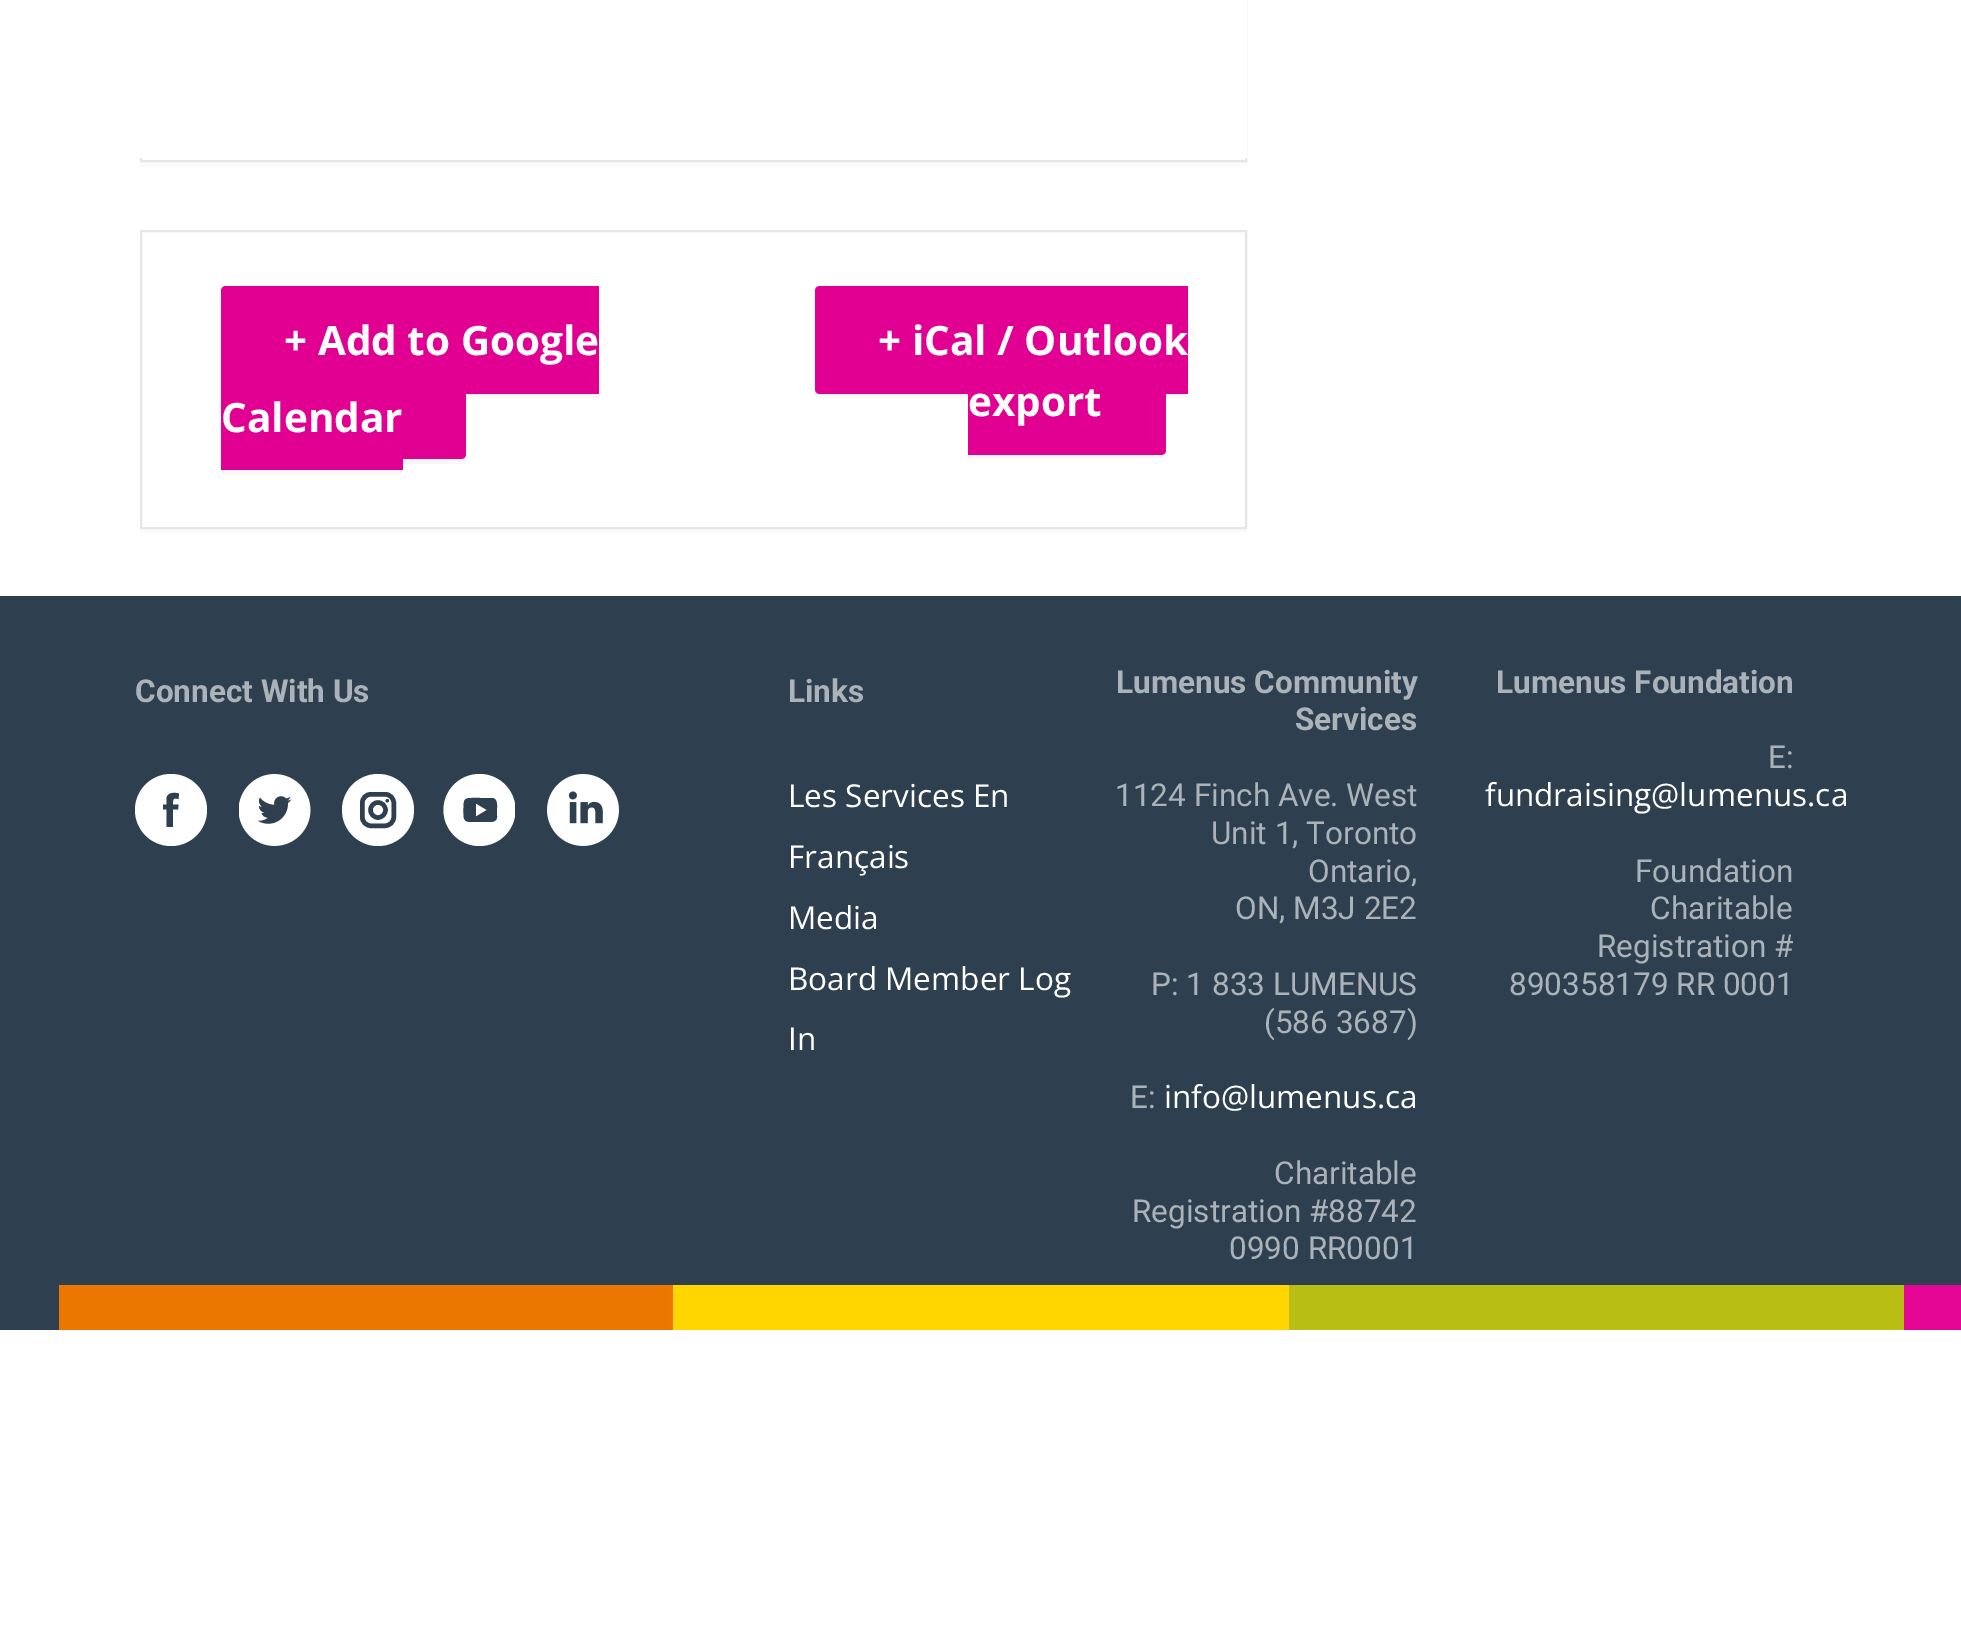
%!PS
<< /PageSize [1961 1647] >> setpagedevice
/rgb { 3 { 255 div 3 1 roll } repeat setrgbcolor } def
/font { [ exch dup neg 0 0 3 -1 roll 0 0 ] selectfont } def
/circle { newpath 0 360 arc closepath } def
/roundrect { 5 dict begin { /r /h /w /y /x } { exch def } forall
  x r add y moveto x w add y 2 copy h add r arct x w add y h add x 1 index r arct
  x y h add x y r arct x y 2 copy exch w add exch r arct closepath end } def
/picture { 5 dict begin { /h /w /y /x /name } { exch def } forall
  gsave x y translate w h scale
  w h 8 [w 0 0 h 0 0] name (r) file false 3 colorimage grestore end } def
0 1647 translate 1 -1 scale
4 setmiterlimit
255 255 255 rgb
0 0 1961 1647 rectfill
251 251 251 rgb
140 162 moveto 140 167 lineto 1247 167 lineto 1247 -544 lineto 1246 -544 lineto 1246 162 lineto closepath fill
230 230 230 rgb
2 setlinewidth
141 -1 1105 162 rectstroke
255 255 255 rgb
140 0 1107 158 rectfill
251 251 251 rgb
140 529 moveto 140 533 lineto 1247 533 lineto 1247 234 lineto 1246 234 lineto 1246 529 lineto closepath fill
230 230 230 rgb
141 231 1105 297 rectstroke
247 247 247 rgb
221 391 moveto 221 395 222 398 226 398 curveto 599 398 lineto 599 290 lineto 598 290 lineto 598 394 lineto 225 394 lineto 223 394 222 393 221 391 curveto closepath fill
226 0 147 rgb
226 286 moveto 599 286 lineto 599 394 lineto 226 394 lineto 223 394 221 392 221 389 curveto 221 291 lineto 221 288 223 286 226 286 curveto closepath fill
247 247 247 rgb
221 470 moveto 221 475 lineto 403 475 lineto 403 367 lineto 403 470 lineto closepath fill
226 0 147 rgb
221 389 182 81 rectfill
247 247 247 rgb
403 459 moveto 403 464 lineto 451 464 lineto 455 464 466 466 466 459 curveto 466 352 lineto 466 454 lineto 466 457 464 459 461 459 curveto closepath fill
226 0 147 rgb
403 344 moveto 461 344 lineto 464 344 466 346 466 349 curveto 466 454 lineto 466 457 464 459 461 459 curveto 403 459 lineto closepath fill
247 247 247 rgb
815 391 moveto 815 395 816 398 820 398 curveto 1188 398 lineto 1188 394 lineto 819 394 lineto 817 394 816 393 815 391 curveto closepath fill
226 0 147 rgb
820 286 moveto 1188 286 lineto 1188 394 lineto 820 394 lineto 817 394 815 392 815 389 curveto 815 291 lineto 815 288 817 286 820 286 curveto closepath fill
247 247 247 rgb
968 454 moveto 968 459 lineto 1161 459 lineto 1164 459 1166 457 1166 454 curveto 1166 356 lineto 1166 354 lineto 1166 450 lineto 1166 452 1163 454 1161 454 curveto closepath fill
226 0 147 rgb
968 347 moveto 1161 347 lineto 1164 347 1166 349 1166 352 curveto 1166 450 lineto 1166 453 1164 455 1161 455 curveto 968 455 lineto closepath fill
46 64 79 rgb
0 596 1961 734 rectfill
255 255 255 rgb
171 810 36 circle fill
46 64 79 rgb
163 804.5 moveto 166.5 804.5 lineto 166.5 798 lineto 168 792 174.5 792.5 179 793.5 curveto 178.5 799 lineto 172.5 797.5 173 799.5 173 804.5 curveto 178.5 804.5 lineto 178 809.5 lineto 173 809.5 lineto 173 827 lineto 166.5 827 lineto 166.5 809.5 lineto 163 809.5 lineto closepath fill
(img/1.rgb) 239 774 72 72 picture
255 255 255 rgb
378 810 36 circle fill
46 64 79 rgb
4.5 setlinewidth
362.25 794.25 31.5 31.5 8.75 roundrect stroke
4.4 setlinewidth
378 810 7.5 circle stroke
387.3 800.7 1.7 circle fill
gsave
443 774 72 72 rectclip
255 255 255 rgb
479.5 810 36 circle fill
grestore
487 810 moveto 476 816.5 lineto 476 803.5 lineto closepath 497 816 moveto 497 808 lineto 497 804 497.5 799 492.5 798 curveto 480.5 798 lineto 462.5 798 463.5 796.5 463.5 814 curveto 463.5 821.5 466 822 473 822 curveto 487.5 822 lineto 492 822 497.5 822 497 816 curveto fill
(img/2.rgb) 547 774 72 72 picture
[
  [59 1285 614 45 236 119 0]
  [673 1285 616 45 255 214 0]
  [1289 1285 615 45 184 190 20]
  [1904 1285 57 45 229 6 149]
] { aload pop rgb rectfill } forall
/OpenSans-Bold 40.5 font
255 255 255 rgb
[
  [(+ Add to Google) 284 355]
  [(Calendar) 221 432]
  [(+ iCal / Outlook) 878 355]
  [(export) 968 416]
] { aload pop moveto show } forall
/Roboto-Bold 31.5 font
171 179 185 rgb
135 702 moveto (Connect With Us) show
788 702 moveto (Links) show
/OpenSans-Regular 31.5 font
255 255 255 rgb
[
  [(Les Services En) 788 807]
  [(Français) 788 868]
  [(Media) 788 929]
  [(Board Member Log) 788 990]
  [(In) 788 1050]
] { aload pop moveto show } forall
/Roboto-Bold 31.5 font
171 179 185 rgb
1116 693 moveto (Lumenus Community) show
1295 730 moveto (Services) show
/Roboto-Regular 31.5 font
[
  [(1124 Finch Ave. West) 1115 806]
  [(Unit 1, Toronto) 1211 844]
  [(Ontario,) 1308 882]
  [(ON, M3J 2E2) 1235 919]
  [(P: 1 833 LUMENUS) 1151 995]
  [(\(586 3687\)) 1264 1033]
  [(E:) 1130 1108]
] { aload pop moveto show } forall
/OpenSans-Regular 31.5 font
255 255 255 rgb
1164 1108 moveto (info@lumenus.ca) show
/Roboto-Regular 31.5 font
171 179 185 rgb
[
  [(Charitable) 1274 1184]
  [(Registration #88742) 1132 1222]
  [(0990 RR0001) 1229 1259]
] { aload pop moveto show } forall
/Roboto-Bold 31.5 font
1496 693 moveto (Lumenus Foundation) show
/Roboto-Regular 31.5 font
1768 768 moveto (E:) show
/OpenSans-Regular 31.5 font
255 255 255 rgb
1485 806 moveto (fundraising@lumenus.ca) show
/Roboto-Regular 31.5 font
171 179 185 rgb
[
  [(Foundation) 1635 882]
  [(Charitable) 1650 919]
  [(Registration #) 1597 957]
  [(890358179 RR 0001) 1509 995]
] { aload pop moveto show } forall
showpage
